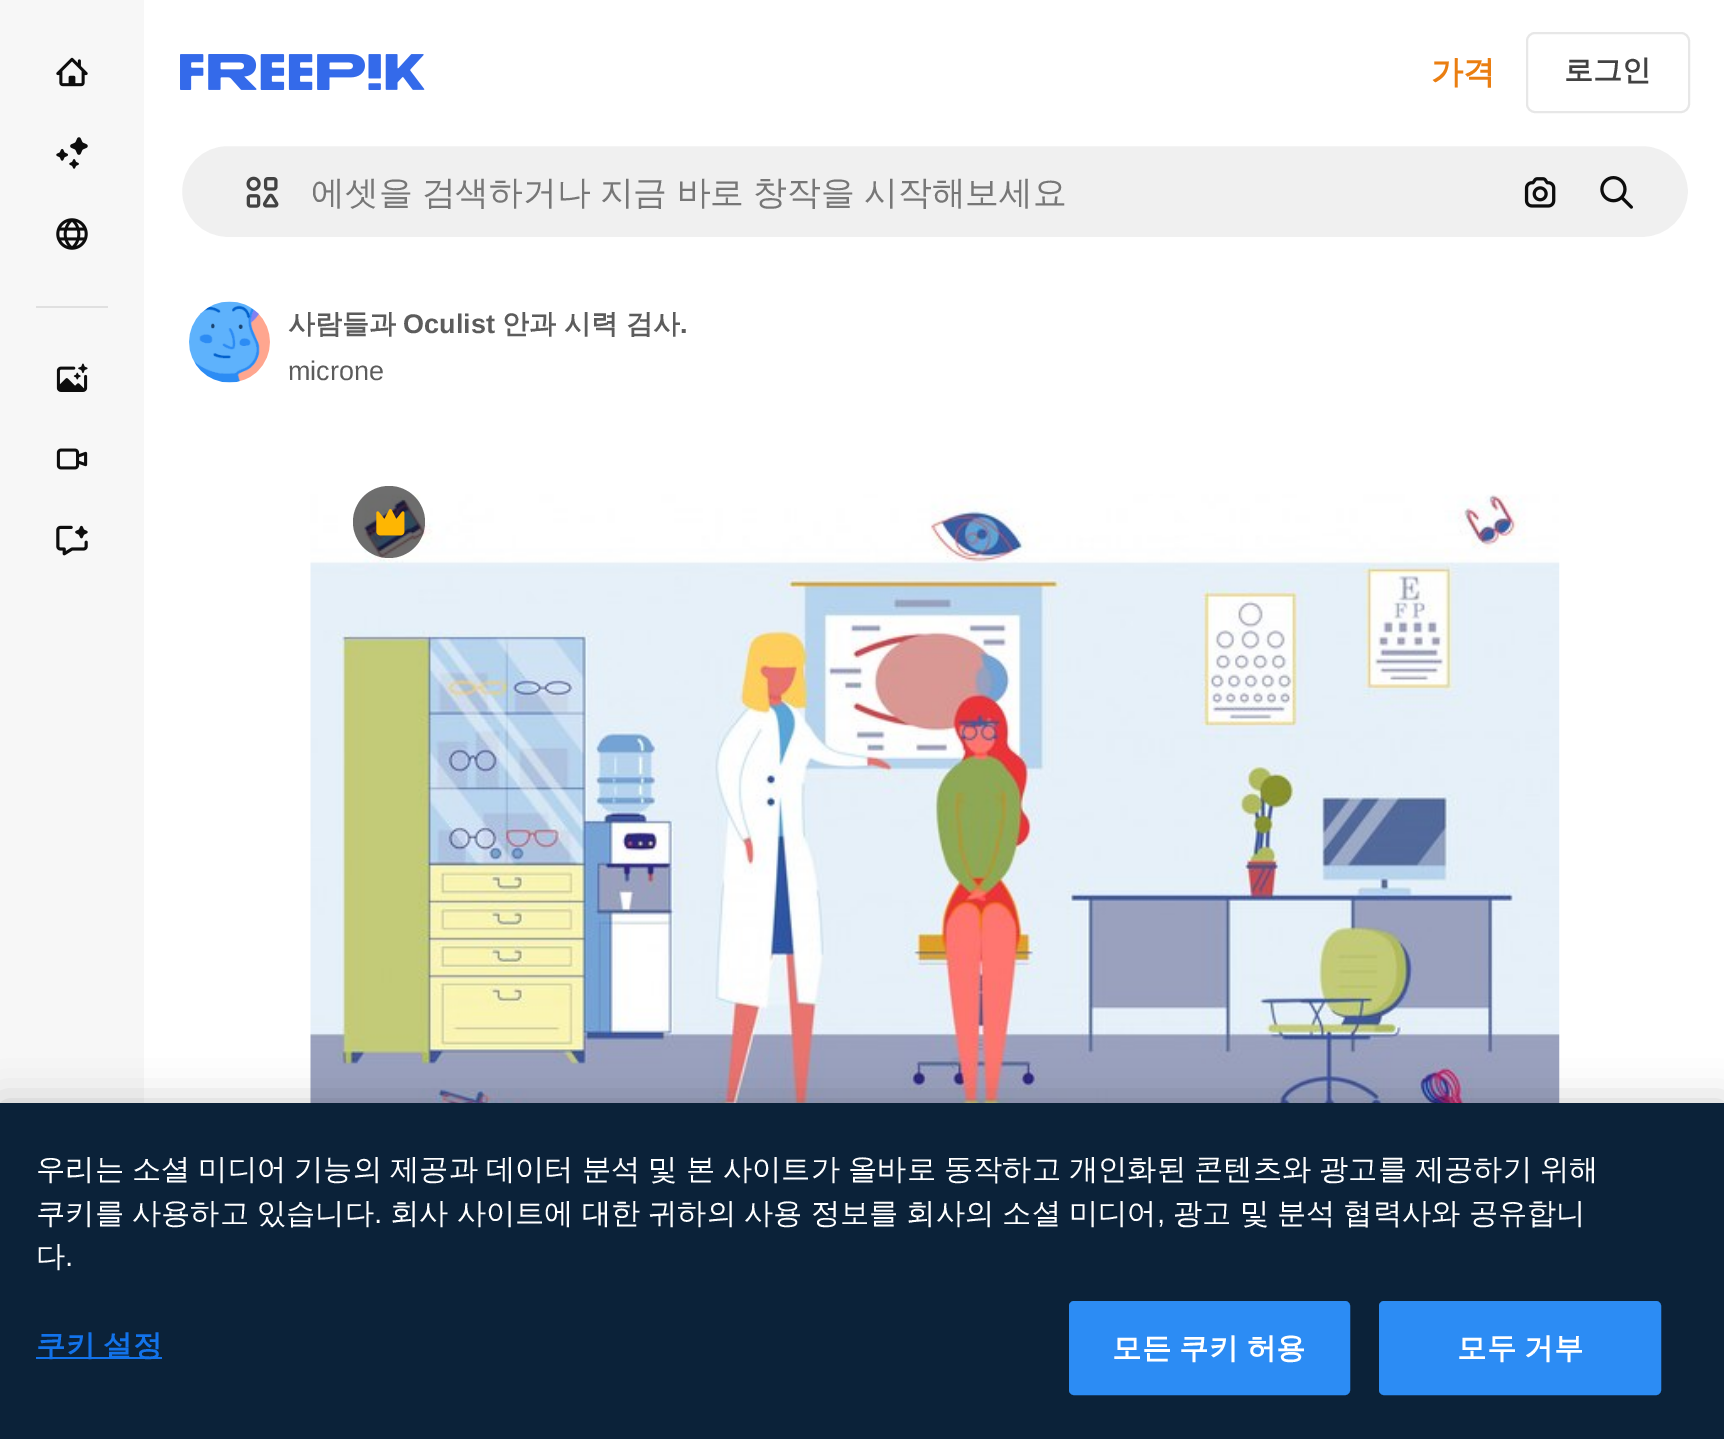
%!PS
<< /PageSize [1724 1439] /PageUsesTransparency true >> setpagedevice
/rgb { 3 { 255 div 3 1 roll } repeat setrgbcolor } def
/font { [ exch dup neg 0 0 3 -1 roll 0 0 ] selectfont } def
/alpha { dup .setfillconstantalpha .setstrokeconstantalpha } def
/circle { newpath 0 360 arc closepath } def
/roundrect { 5 dict begin { /r /h /w /y /x } { exch def } forall
  x r add y moveto x w add y 2 copy h add r arct x w add y h add x 1 index r arct
  x y h add x y r arct x y 2 copy exch w add exch r arct closepath end } def
/shadow { 12 dict begin { /a /b /q /h /w /y /x } { exch def } forall gsave /was 0 def
  9 -2 -9 { dup b mul 4 div /e exch def 1 sub .425 mul 2.718 exch exp 1 add a .99 .min exch div /now exch def
    1 1 now sub 1 was sub div sub alpha /was now def
    w h .min e 2 mul add 0 gt { x e sub y e sub w e 2 mul add h e 2 mul add
      q e add b .6 mul add w h .min 2 div e add .min 0 .max roundrect fill } if } for grestore end } def
/picture { 5 dict begin { /h /w /y /x /name } { exch def } forall
  gsave x y translate w h scale
  w h 8 [w 0 0 h 0 0] name (r) file false 3 colorimage grestore end } def
0 .pushpdf14devicefilter
0 1439 translate 1 -1 scale
4 setmiterlimit
255 255 255 rgb
0 0 1724 1439 rectfill
247 247 247 rgb
0 0 144 1103 rectfill
(img/1.rgb) 56 57 32 30 picture
(img/2.rgb) 56 137 32 32 picture
(img/3.rgb) 56 218 32 32 picture
224 224 224 rgb
36 306 72 2 rectfill
(img/4.rgb) 56 363 32 29 picture
(img/5.rgb) 56 448 32 22 picture
(img/6.rgb) 56 525 32 31 picture
(img/7.rgb) 180 54 245 36 picture
231 231 231 rgb
2 setlinewidth
1527 33 162 79 8 roundrect stroke
240 240 240 rgb
181 145 1508 93 46.5 roundrect gsave fill grestore
255 255 255 rgb
stroke
(img/8.rgb) 246 176 33 32 picture
(img/9.rgb) 1524 177 32 31 picture
(img/10.rgb) 1600 176 33 33 picture
(img/11.rgb) 189 301 81 82 picture
(img/13.rgb) 310 494 1250 609 picture
0.6 alpha
13 13 13 rgb
389 522 36 circle fill
1 alpha
(img/12.rgb) 376 509 29 27 picture
0 0 0 rgb
0 1103 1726 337 0 20 0.2 shadow
11 34 57 rgb
0 1103 1724 336 rectfill
18 115 235 rgb
36 1357 126 2 rectfill
44 140 244 rgb
1070 1302 279 92 4 roundrect gsave fill grestore
stroke
1380 1302 280 92 4 roundrect gsave fill grestore
stroke
/WenQuanYiZenHei-Bold 32 font
234 126 17 rgb
1431 83 moveto (가격) show
/WenQuanYiZenHei-Bold 29 font
66 66 66 rgb
1564 80 moveto (로그인) show
/WenQuanYiZenHei-Medium 33.75 font
119 119 119 rgb
311 204 moveto -0.75 0 32 (에셋을 검색하거나 지금 바로 창작을 시작해보세요) widthshow
/WenQuanYiZenHei-Bold 27 font
92 92 92 rgb
288 333 moveto (사람들과) show
/LiberationSans-Bold 27 font
403 333 moveto (Oculist) show
/WenQuanYiZenHei-Bold 27 font
502 333 moveto (안과 시력 검사) show
/LiberationSans-Bold 27 font
680 333 moveto (.) show
/LiberationSans-Regular 27 font
288 380 moveto (microne) show
/WenQuanYiZenHei-Medium 29.27 font
255 255 255 rgb
36 1179 moveto -0.75 0 32 (우리는 소셜 미디어 기능의 제공과 데이터 분석 및 본 사이트가 올바로 동작하고 개인화된 콘텐츠와 광고를 제공하기 위해) widthshow
36 1223 moveto -0.75 0 32 (쿠키를 사용하고 있습니다) widthshow
/LiberationSans-Regular 29.27 font
374 1223 moveto (.) show
/WenQuanYiZenHei-Medium 29.27 font
390 1223 moveto -0.75 0 32 (회사 사이트에 대한 귀하의 사용 정보를 회사의 소셜 미디어) widthshow
/LiberationSans-Regular 29.27 font
1157 1223 moveto (,) show
/WenQuanYiZenHei-Medium 29.27 font
1173 1223 moveto -0.75 0 32 (광고 및 분석 협력사와 공유합니) widthshow
36 1266 moveto (다) show
/LiberationSans-Regular 29.27 font
65 1266 moveto (.) show
/WenQuanYiZenHei-Bold 29.27 font
18 115 235 rgb
36 1355 moveto -0.75 0 32 0.25 0 (쿠키 설정) awidthshow
255 255 255 rgb
1112 1358 moveto -0.75 0 32 0.25 0 (모든 쿠키 허용) awidthshow
1457 1358 moveto -0.75 0 32 0.25 0 (모두 거부) awidthshow
.poppdf14devicefilter showpage
